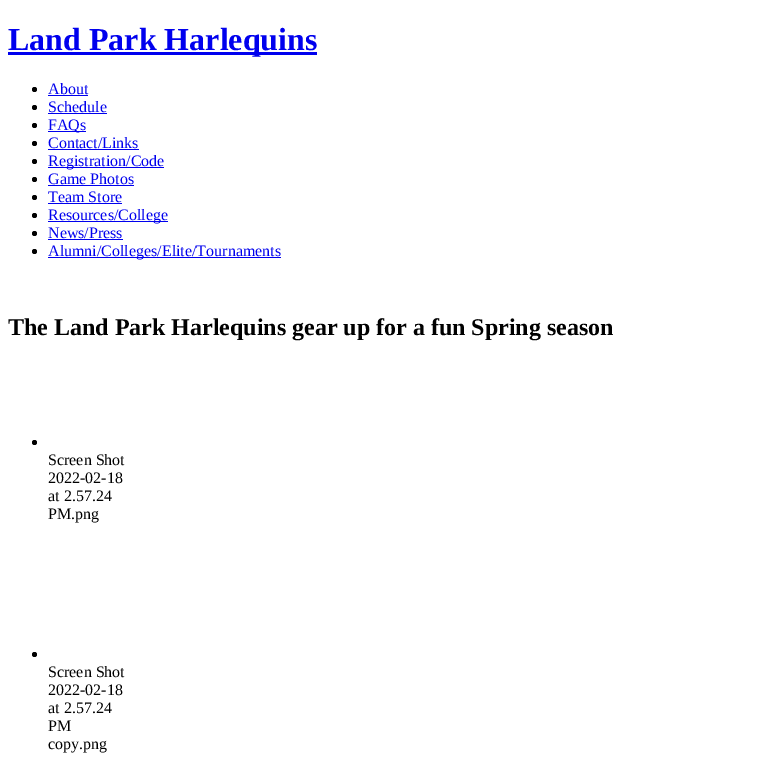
%!PS
<< /PageSize [773 776] >> setpagedevice
/rgb { 3 { 255 div 3 1 roll } repeat setrgbcolor } def
/font { [ exch dup neg 0 0 3 -1 roll 0 0 ] selectfont } def
/circle { newpath 0 360 arc closepath } def
0 776 translate 1 -1 scale
4 setmiterlimit
255 255 255 rgb
0 0 773 776 rectfill
0 0 238 rgb
8 52 309 3 rectfill
0 0 0 rgb
34.5 89.5 2.5 circle fill
0 0 238 rgb
48 95 40 1 rectfill
0 0 0 rgb
34.5 107.5 2.5 circle fill
0 0 238 rgb
48 113 59 1 rectfill
0 0 0 rgb
34.5 125.5 2.5 circle fill
0 0 238 rgb
48 131 38 1 rectfill
0 0 0 rgb
34.5 143.5 2.5 circle fill
0 0 238 rgb
48 149 91 1 rectfill
0 0 0 rgb
34.5 161.5 2.5 circle fill
0 0 238 rgb
48 167 116 1 rectfill
0 0 0 rgb
34.5 179.5 2.5 circle fill
0 0 238 rgb
48 185 86 1 rectfill
0 0 0 rgb
34.5 197.5 2.5 circle fill
0 0 238 rgb
48 203 74 1 rectfill
0 0 0 rgb
34.5 215.5 2.5 circle fill
0 0 238 rgb
48 221 120 1 rectfill
0 0 0 rgb
34.5 233.5 2.5 circle fill
0 0 238 rgb
48 239 75 1 rectfill
0 0 0 rgb
34.5 251.5 2.5 circle fill
0 0 238 rgb
48 257 233 1 rectfill
0 0 0 rgb
34.5 442.5 2.5 circle fill
34.5 654.5 2.5 circle fill
/LiberationSerif-Bold 32 font
0 0 238 rgb
8 50 moveto (Land Park Harlequins) show
/LiberationSerif-Regular 16 font
[
  [(About) 48 94]
  [(Schedule) 48 112]
  [(FAQs) 48 130]
  [(Contact/Links) 48 148]
  [(Registration/Code) 48 166]
  [(Game Photos) 48 184]
  [(Team Store) 48 202]
  [(Resources/College) 48 220]
  [(News/Press) 48 238]
  [(Alumni/Colleges/Elite/Tournaments) 48 256]
] { aload pop moveto show } forall
/LiberationSerif-Bold 24 font
0 0 0 rgb
8 335 moveto (The Land Park Harlequins gear up for a fun Spring season) show
/LiberationSerif-Regular 16 font
[
  [(Screen Shot) 48 465]
  [(2022-02-18) 48 483]
  [(at 2.57.24) 48 501]
  [(PM.png) 48 519]
  [(Screen Shot) 48 677]
  [(2022-02-18) 48 695]
  [(at 2.57.24) 48 713]
  [(PM) 48 731]
  [(copy.png) 48 749]
] { aload pop moveto show } forall
showpage
